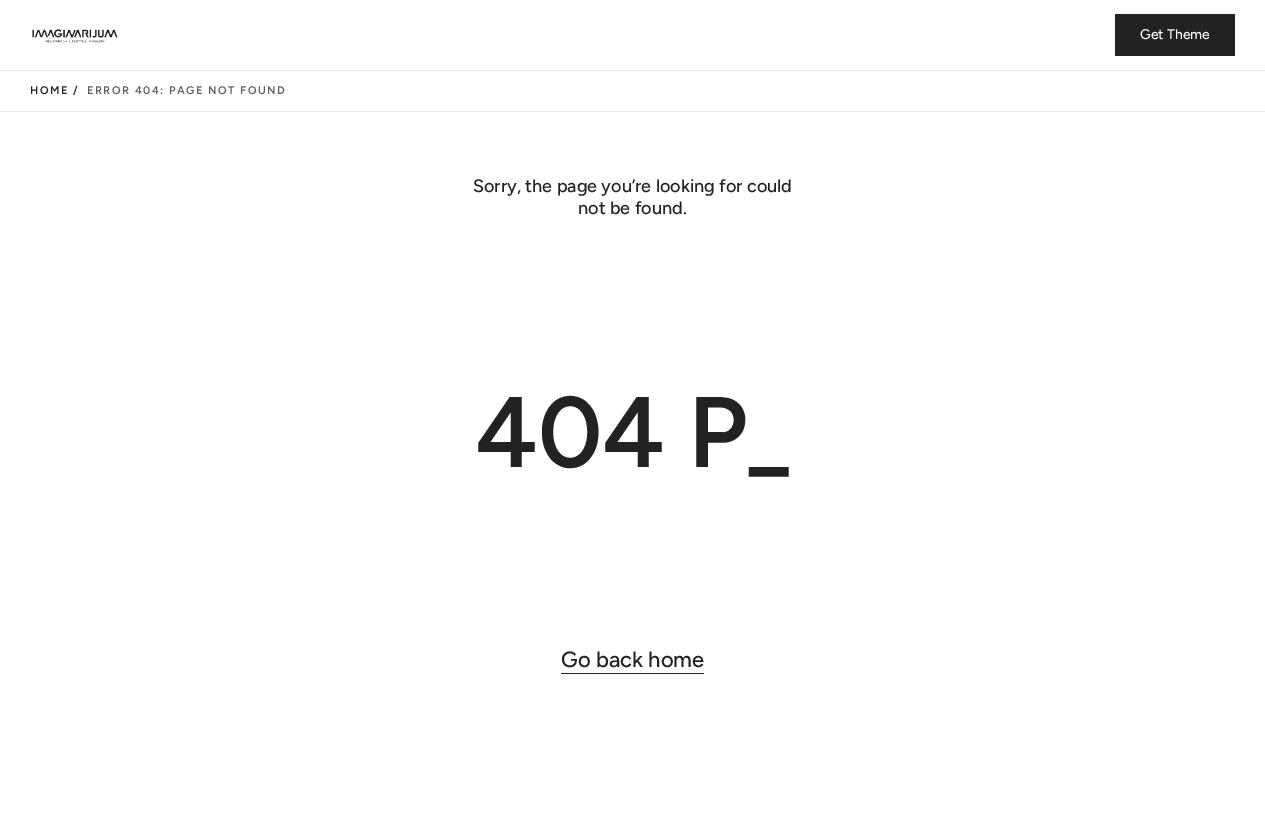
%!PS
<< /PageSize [1265 820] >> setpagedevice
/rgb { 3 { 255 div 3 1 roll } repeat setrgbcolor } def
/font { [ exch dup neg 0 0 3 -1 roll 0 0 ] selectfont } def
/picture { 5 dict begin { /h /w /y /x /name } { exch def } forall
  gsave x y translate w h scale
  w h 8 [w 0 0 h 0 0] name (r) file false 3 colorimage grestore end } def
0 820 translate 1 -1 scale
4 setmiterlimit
255 255 255 rgb
0 0 1265 820 rectfill
(img/1.rgb) 32 29 86 14 picture
[
  [1115 14 120 42 34 34 34]
  [0 70 1265 1 234 234 234]
  [0 111 1265 1 234 234 234]
  [561 673 143 1 34 34 34]
] { aload pop rgb rectfill } forall
/Figtree-Medium 14 font
255 255 255 rgb
1140 39 moveto (Get Theme) show
/Figtree-SemiBold 11 font
34 34 34 rgb
30 94 moveto 1.5 0 (HOME /) ashow
94 94 94 rgb
87 94 moveto 1.5 0 (ERROR 404: PAGE NOT FOUND) ashow
/Figtree-Medium 18 font
34 34 34 rgb
473 192 moveto (Sorry, the page you’re looking for could) show
578 214 moveto (not be found.) show
/Figtree-SemiBold 100 font
475 467 moveto -0.25 0 (404 P) ashow
747 467 moveto -0.25 0 (_) ashow
/Figtree-Medium 22 font
561 667 moveto (Go back home) show
showpage
